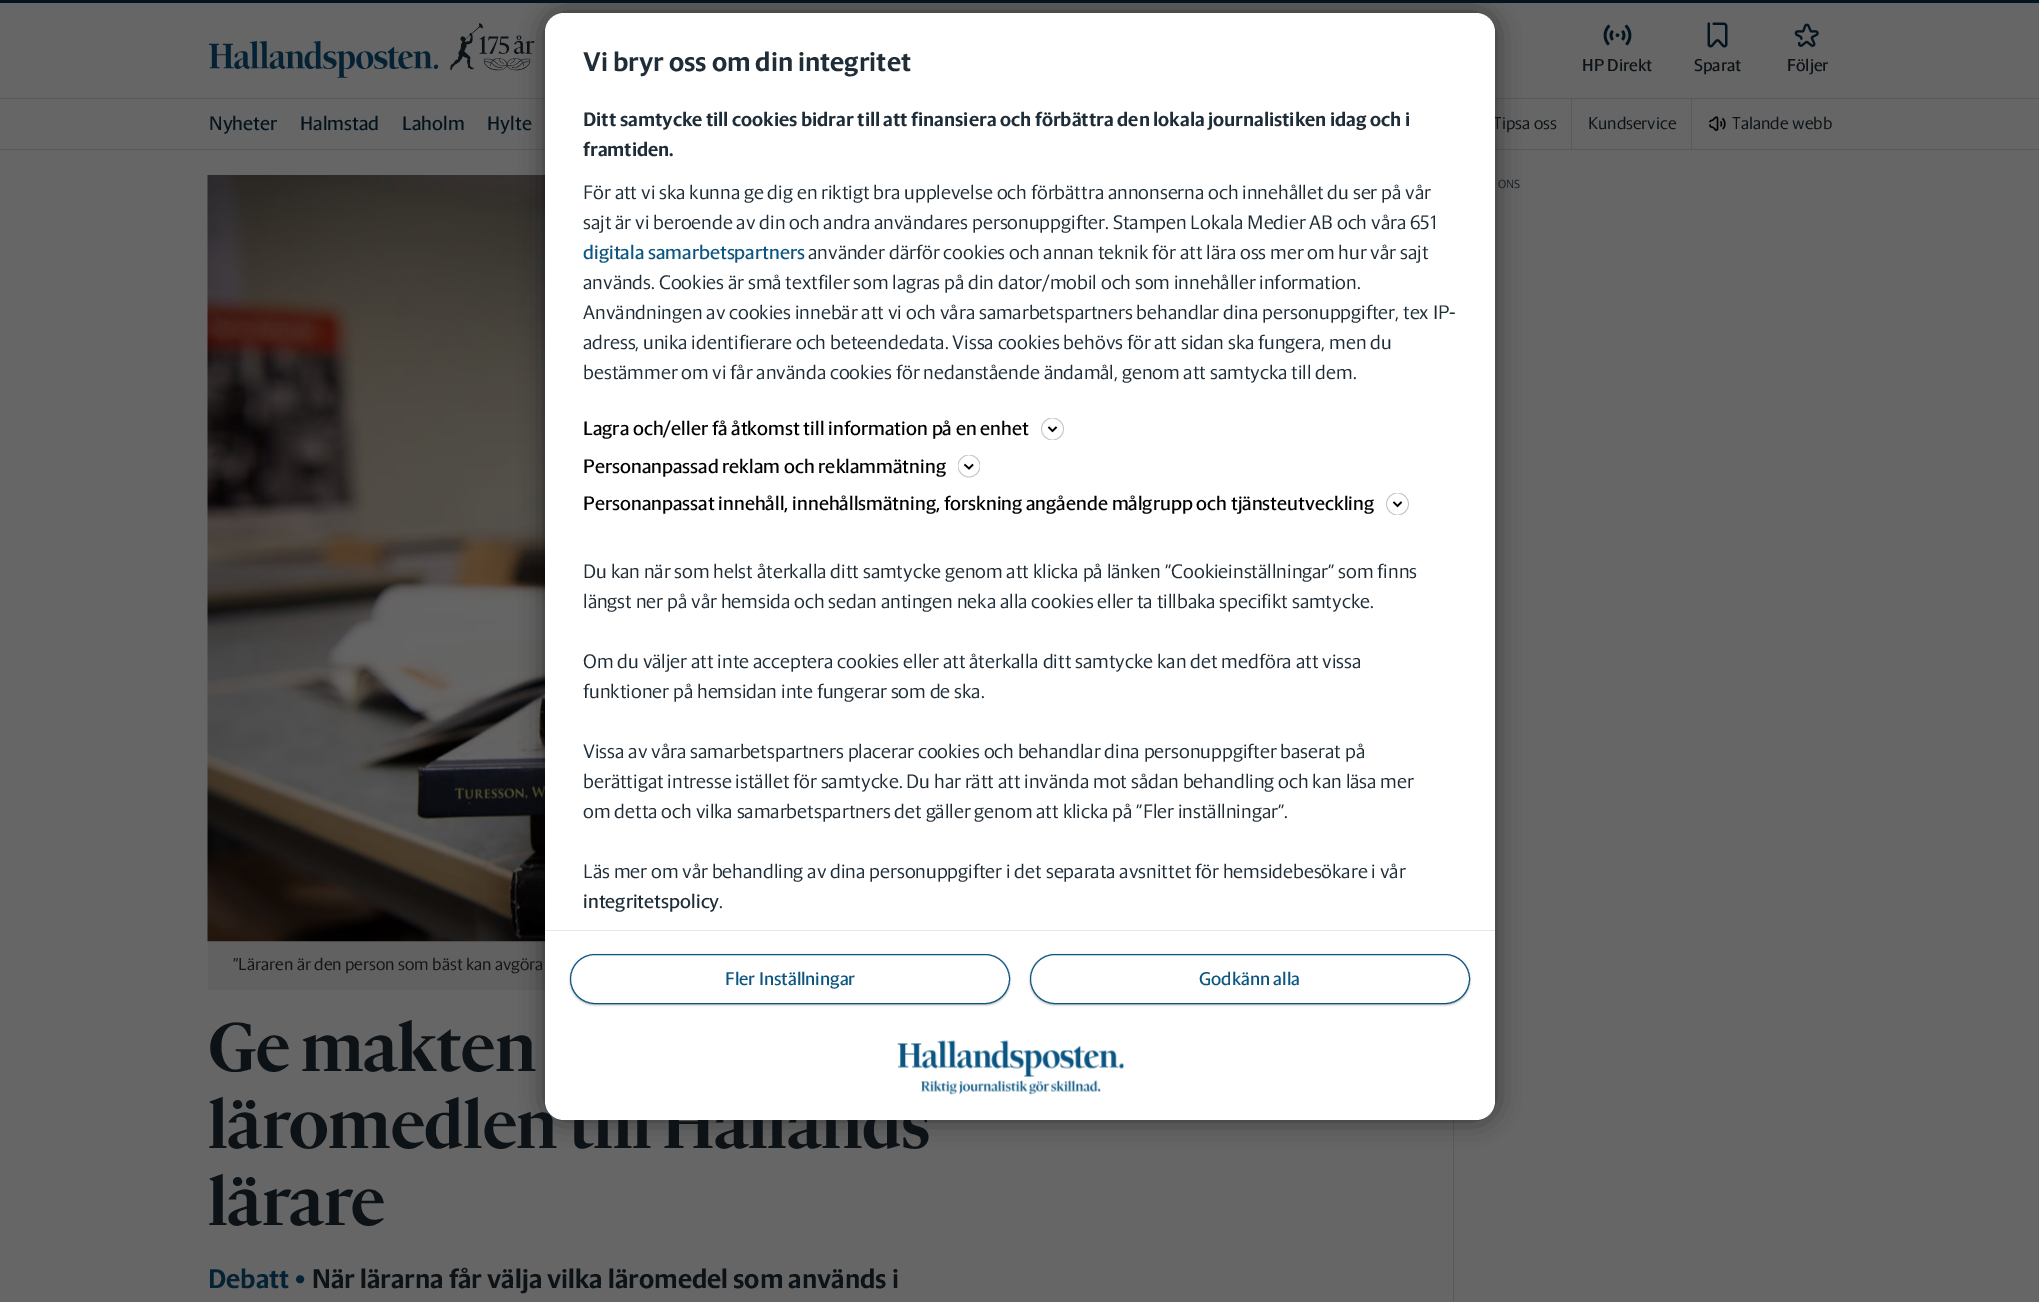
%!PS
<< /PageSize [2039 1302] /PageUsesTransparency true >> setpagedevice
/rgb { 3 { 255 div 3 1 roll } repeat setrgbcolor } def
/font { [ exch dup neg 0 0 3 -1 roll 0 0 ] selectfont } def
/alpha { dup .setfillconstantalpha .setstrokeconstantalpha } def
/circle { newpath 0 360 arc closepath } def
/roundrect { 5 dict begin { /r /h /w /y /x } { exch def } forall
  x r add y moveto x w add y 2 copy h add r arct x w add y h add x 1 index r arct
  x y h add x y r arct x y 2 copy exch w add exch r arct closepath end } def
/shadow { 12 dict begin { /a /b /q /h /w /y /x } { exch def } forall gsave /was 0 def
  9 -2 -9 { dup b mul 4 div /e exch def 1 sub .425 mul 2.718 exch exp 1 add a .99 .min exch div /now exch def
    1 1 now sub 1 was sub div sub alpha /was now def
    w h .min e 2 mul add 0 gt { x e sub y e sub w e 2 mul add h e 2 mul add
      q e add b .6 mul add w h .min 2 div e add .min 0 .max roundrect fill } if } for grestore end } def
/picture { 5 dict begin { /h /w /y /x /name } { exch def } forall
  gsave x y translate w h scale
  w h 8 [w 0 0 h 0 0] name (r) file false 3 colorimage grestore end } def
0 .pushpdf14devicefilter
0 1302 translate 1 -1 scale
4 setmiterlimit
102 102 102 rgb
0 0 2039 1302 rectfill
4 20 30 rgb
0 0 2039 3 rectfill
88 90 90 rgb
0 149 2039 1 rectfill
(img/2.rgb) 209 23 326 55 picture
[
  [0 98 2039 1 88 90 90]
  [1453 1120 1 182 88 90 90]
  [208 941 337 49 97 97 97]
] { aload pop rgb rectfill } forall
(img/7.rgb) 207 175 338 767 picture
0 0 0 rgb
545 13 950 1107 19 12.5 0.5 shadow
(img/3.rgb) 1603 24 29 22 picture
(img/4.rgb) 1707 22 21 26 picture
(img/5.rgb) 1794 23 25 24 picture
88 90 90 rgb
1571 99 1 50 rectfill
1691 99 1 50 rectfill
(img/6.rgb) 1709 116 17 15 picture
/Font-Medium 17.5 font
12 18 22 rgb
[
  [(HP Direkt) 1582 71]
  [(Sparat) 1694 71]
  [(Följer) 1787 71]
] { aload pop moveto show } forall
/Font-Medium 20 font
4 20 30 rgb
[
  [(Nyheter) 209 130]
  [(Halmstad) 300 130]
  [(Laholm) 402 130]
  [(Hylte) 487 130]
] { aload pop moveto show } forall
/Font-Light 17.5 font
12 18 22 rgb
[
  [(Tipsa oss) 1493 129]
  [(Kundservice) 1588 129]
  [(Talande webb) 1732 129]
] { aload pop moveto show } forall
/Font-Light 12 font
20 28 32 rgb
1498 188 moveto (ONS) show
/Font-Light 17.5 font
20 20 20 rgb
233 970 moveto (”Läraren är den person som bäst kan avgöra) show
/Font-Bold 70 font
12 18 22 rgb
208 1071 moveto -0.5 0 (Ge makten) ashow
208 1148 moveto -0.5 0 (läromedlen till Hallands) ashow
255 255 255 rgb
545 13 950 1107 19 roundrect fill
0 0 0 rgb
1.6 setlinewidth
1393.5 502 moveto 1397.5 506 lineto 1401.5 502 lineto stroke
gsave
1386 493 23 22 rectclip
196 196 196 rgb
0.8 setlinewidth
1397.5 504 11 circle stroke
grestore
964.5 464.5 moveto 969 468.5 lineto 973 464.5 lineto stroke
gsave
958 455 22 23 rectclip
196 196 196 rgb
0.8 setlinewidth
969 466 11 circle stroke
grestore
1048.5 427 moveto 1052.5 431 lineto 1056.5 427 lineto stroke
gsave
1041 418 23 22 rectclip
196 196 196 rgb
0.8 setlinewidth
1052.5 429 11 circle stroke
grestore
/Font-Medium 20 font
[
  [(Personanpassat innehåll, innehållsmätning, forskning angående målgrupp och tjänsteutveckling) 583 510]
  [(Personanpassad reklam och reklammätning) 583 473]
  [(Lagra och/eller få åtkomst till information på en enhet) 583 435]
] { aload pop moveto show } forall
/Font-Light 20 font
30 45 55 rgb
719 908 moveto (.) show
/Font-Medium 20 font
583 908 moveto (integritetspolicy) show
/Font-Light 20 font
[
  [(Läs mer om vår behandling av dina personuppgifter i det separata avsnittet för hemsidebesökare i vår) 583 878]
  [(om detta och vilka samarbetspartners det gäller genom att klicka på "Fler inställningar".) 583 818]
  [(berättigat intresse istället för samtycke. Du har rätt att invända mot sådan behandling och kan läsa mer) 583 788]
  [(Vissa av våra samarbetspartners placerar cookies och behandlar dina personuppgifter baserat på) 583 758]
  [(funktioner på hemsidan inte fungerar som de ska.) 583 698]
  [(Om du väljer att inte acceptera cookies eller att återkalla ditt samtycke kan det medföra att vissa) 583 668]
  [(längst ner på vår hemsida och sedan antingen neka alla cookies eller ta tillbaka specifikt samtycke.) 583 608]
  [(Du kan när som helst återkalla ditt samtycke genom att klicka på länken "Cookieinställningar" som finns) 583 578]
  [(bestämmer om vi får använda cookies för nedanstående ändamål, genom att samtycka till dem.) 583 379]
  [(adress, unika identifierare och beteendedata. Vissa cookies behövs för att sidan ska fungera, men du) 583 349]
  [(Användningen av cookies innebär att vi och våra samarbetspartners behandlar dina personuppgifter, tex IP-) 583 319]
  [(används. Cookies är små textfiler som lagras på din dator/mobil och som innehåller information.) 583 289]
  [(använder därför cookies och annan teknik för att lära oss mer om hur vår sajt) 808 259]
] { aload pop moveto show } forall
/Font-Medium 20 font
10 85 130 rgb
583 259 moveto (digitala samarbetspartners) show
/Font-Light 20 font
30 45 55 rgb
583 229 moveto (sajt är vi beroende av din och andra användares personuppgifter. Stampen Lokala Medier AB och våra 651) show
583 199 moveto (För att vi ska kunna ge dig en riktigt bra upplevelse och förbättra annonserna och innehållet du ser på vår) show
/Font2-Bold 20 font
583 156 moveto (framtiden.) show
583 126 moveto (Ditt samtycke till cookies bidrar till att finansiera och förbättra den lokala journalistiken idag och i) show
/Font2-Bold 27.5 font
583 71 moveto (Vi bryr oss om din integritet) show
0 0 0 rgb
1030 955 440 50 25 1 0.3 shadow
255 255 255 rgb
1030.5 954.5 439 49 24.5 roundrect gsave fill grestore
10 85 130 rgb
1 setlinewidth
stroke
/Font-Medium 18.75 font
1199 985 moveto (Godkänn alla) show
0 0 0 rgb
570 955 440 50 25 1 0.3 shadow
255 255 255 rgb
570.5 954.5 439 49 24.5 roundrect gsave fill grestore
10 85 130 rgb
stroke
725 985 moveto (Fler Inställningar) show
230 230 230 rgb
545 930 950 1 rectfill
(img/1.rgb) 897 1040 228 55 picture
/Font-Bold 70 font
12 18 22 rgb
208 1225 moveto -0.5 0 (lärare) ashow
/Font2-Bold 27.5 font
4 34 52 rgb
208 1288 moveto (Debatt) show
295 1288 moveto (•) show
12 18 22 rgb
312 1288 moveto (När lärarna får välja vilka läromedel som används i) show
.poppdf14devicefilter showpage
